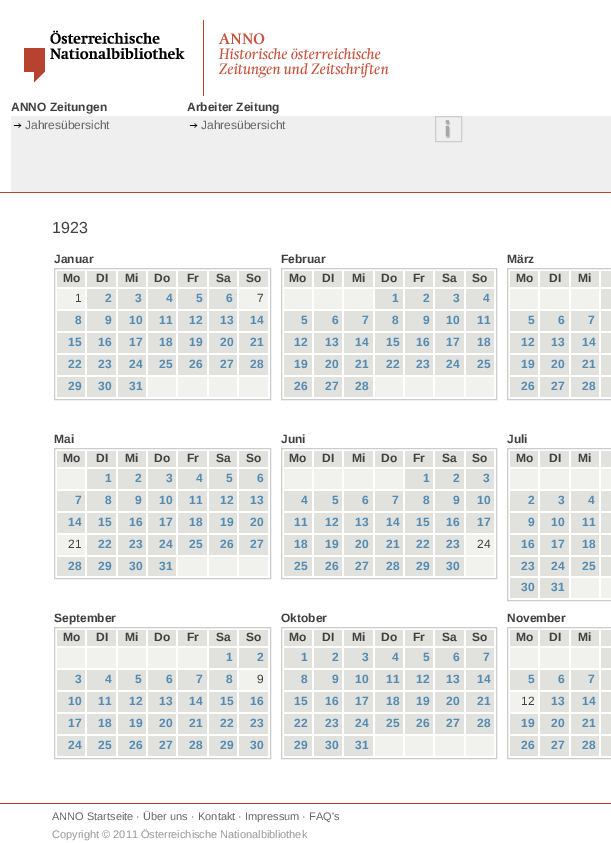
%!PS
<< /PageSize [611 843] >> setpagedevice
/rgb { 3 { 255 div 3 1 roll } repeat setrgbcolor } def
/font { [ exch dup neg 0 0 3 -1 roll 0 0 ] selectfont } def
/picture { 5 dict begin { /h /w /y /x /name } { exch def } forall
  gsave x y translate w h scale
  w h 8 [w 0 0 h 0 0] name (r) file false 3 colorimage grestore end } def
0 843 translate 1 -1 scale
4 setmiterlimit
255 255 255 rgb
0 0 611 843 rectfill
183 66 47 rgb
0 192 611 1 rectfill
(img/1.rgb) 24 30 161 52 picture
203 20 1 76 rectfill
(img/2.rgb) 218 33 171 45 picture
239 239 239 rgb
11 116 600 76 rectfill
(img/3.rgb) 13 123 9 5 picture
(img/3.rgb) 189 123 9 5 picture
204 204 204 rgb
435.5 116.5 26 25 rectstroke
(img/4.rgb) 445 120 6 19 picture
54.5 268.5 216 131 rectstroke
[
  [57 271 28 16 225 225 221]
  [87 271 29 16 225 225 221]
  [118 271 28 16 225 225 221]
  [148 271 28 16 225 225 221]
  [178 271 29 16 225 225 221]
  [209 271 28 16 225 225 221]
  [239 271 29 16 225 225 221]
  [57 289 28 20 241 241 237]
  [87 289 29 20 225 225 221]
  [118 289 28 20 225 225 221]
  [148 289 28 20 225 225 221]
  [178 289 29 20 225 225 221]
  [209 289 28 20 225 225 221]
  [239 289 29 20 241 241 237]
  [57 311 28 20 225 225 221]
  [87 311 29 20 225 225 221]
  [118 311 28 20 225 225 221]
  [148 311 28 20 225 225 221]
  [178 311 29 20 225 225 221]
  [209 311 28 20 225 225 221]
  [239 311 29 20 225 225 221]
  [57 333 28 20 225 225 221]
  [87 333 29 20 225 225 221]
  [118 333 28 20 225 225 221]
  [148 333 28 20 225 225 221]
  [178 333 29 20 225 225 221]
  [209 333 28 20 225 225 221]
  [239 333 29 20 225 225 221]
  [57 355 28 20 225 225 221]
  [87 355 29 20 225 225 221]
  [118 355 28 20 225 225 221]
  [148 355 28 20 225 225 221]
  [178 355 29 20 225 225 221]
  [209 355 28 20 225 225 221]
  [239 355 29 20 225 225 221]
  [57 377 28 20 225 225 221]
  [87 377 29 20 225 225 221]
  [118 377 28 20 225 225 221]
  [148 377 28 20 241 241 237]
  [178 377 29 20 241 241 237]
  [209 377 28 20 241 241 237]
  [239 377 29 20 241 241 237]
] { aload pop rgb rectfill } forall
204 204 204 rgb
281.5 268.5 215 131 rectstroke
[
  [284 271 28 16 225 225 221]
  [314 271 28 16 225 225 221]
  [344 271 29 16 225 225 221]
  [375 271 28 16 225 225 221]
  [405 271 28 16 225 225 221]
  [435 271 29 16 225 225 221]
  [466 271 28 16 225 225 221]
  [284 289 28 20 241 241 237]
  [314 289 28 20 241 241 237]
  [344 289 29 20 241 241 237]
  [375 289 28 20 225 225 221]
  [405 289 28 20 225 225 221]
  [435 289 29 20 225 225 221]
  [466 289 28 20 225 225 221]
  [284 311 28 20 225 225 221]
  [314 311 28 20 225 225 221]
  [344 311 29 20 225 225 221]
  [375 311 28 20 225 225 221]
  [405 311 28 20 225 225 221]
  [435 311 29 20 225 225 221]
  [466 311 28 20 225 225 221]
  [284 333 28 20 225 225 221]
  [314 333 28 20 225 225 221]
  [344 333 29 20 225 225 221]
  [375 333 28 20 225 225 221]
  [405 333 28 20 225 225 221]
  [435 333 29 20 225 225 221]
  [466 333 28 20 225 225 221]
  [284 355 28 20 225 225 221]
  [314 355 28 20 225 225 221]
  [344 355 29 20 225 225 221]
  [375 355 28 20 225 225 221]
  [405 355 28 20 225 225 221]
  [435 355 29 20 225 225 221]
  [466 355 28 20 225 225 221]
  [284 377 28 20 225 225 221]
  [314 377 28 20 225 225 221]
  [344 377 29 20 225 225 221]
  [375 377 28 20 241 241 237]
  [405 377 28 20 241 241 237]
  [435 377 29 20 241 241 237]
  [466 377 28 20 241 241 237]
] { aload pop rgb rectfill } forall
204 204 204 rgb
507.5 268.5 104 131 rectstroke
[
  [510 271 28 16 225 225 221]
  [540 271 29 16 225 225 221]
  [571 271 28 16 225 225 221]
  [601 271 10 16 225 225 221]
  [510 289 28 20 241 241 237]
  [540 289 29 20 241 241 237]
  [571 289 28 20 241 241 237]
  [601 289 10 20 225 225 221]
  [510 311 28 20 225 225 221]
  [540 311 29 20 225 225 221]
  [571 311 28 20 225 225 221]
  [601 311 10 20 225 225 221]
  [510 333 28 20 225 225 221]
  [540 333 29 20 225 225 221]
  [571 333 28 20 225 225 221]
  [601 333 10 20 225 225 221]
  [510 355 28 20 225 225 221]
  [540 355 29 20 225 225 221]
  [571 355 28 20 225 225 221]
  [601 355 10 20 225 225 221]
  [510 377 28 20 225 225 221]
  [540 377 29 20 225 225 221]
  [571 377 28 20 225 225 221]
  [601 377 10 20 225 225 221]
] { aload pop rgb rectfill } forall
204 204 204 rgb
54.5 448.5 216 130 rectstroke
[
  [57 451 28 16 225 225 221]
  [87 451 29 16 225 225 221]
  [118 451 28 16 225 225 221]
  [148 451 28 16 225 225 221]
  [178 451 29 16 225 225 221]
  [209 451 28 16 225 225 221]
  [239 451 29 16 225 225 221]
  [57 469 28 20 241 241 237]
  [87 469 29 20 225 225 221]
  [118 469 28 20 225 225 221]
  [148 469 28 20 225 225 221]
  [178 469 29 20 225 225 221]
  [209 469 28 20 225 225 221]
  [239 469 29 20 225 225 221]
  [57 491 28 20 225 225 221]
  [87 491 29 20 225 225 221]
  [118 491 28 20 225 225 221]
  [148 491 28 20 225 225 221]
  [178 491 29 20 225 225 221]
  [209 491 28 20 225 225 221]
  [239 491 29 20 225 225 221]
  [57 513 28 20 225 225 221]
  [87 513 29 20 225 225 221]
  [118 513 28 20 225 225 221]
  [148 513 28 20 225 225 221]
  [178 513 29 20 225 225 221]
  [209 513 28 20 225 225 221]
  [239 513 29 20 225 225 221]
  [57 535 28 20 241 241 237]
  [87 535 29 20 225 225 221]
  [118 535 28 20 225 225 221]
  [148 535 28 20 225 225 221]
  [178 535 29 20 225 225 221]
  [209 535 28 20 225 225 221]
  [239 535 29 20 225 225 221]
  [57 557 28 19 225 225 221]
  [87 557 29 19 225 225 221]
  [118 557 28 19 225 225 221]
  [148 557 28 19 225 225 221]
  [178 557 29 19 241 241 237]
  [209 557 28 19 241 241 237]
  [239 557 29 19 241 241 237]
] { aload pop rgb rectfill } forall
204 204 204 rgb
281.5 448.5 215 130 rectstroke
[
  [284 451 28 16 225 225 221]
  [314 451 28 16 225 225 221]
  [344 451 29 16 225 225 221]
  [375 451 28 16 225 225 221]
  [405 451 28 16 225 225 221]
  [435 451 29 16 225 225 221]
  [466 451 28 16 225 225 221]
  [284 469 28 20 241 241 237]
  [314 469 28 20 241 241 237]
  [344 469 29 20 241 241 237]
  [375 469 28 20 241 241 237]
  [405 469 28 20 225 225 221]
  [435 469 29 20 225 225 221]
  [466 469 28 20 225 225 221]
  [284 491 28 20 225 225 221]
  [314 491 28 20 225 225 221]
  [344 491 29 20 225 225 221]
  [375 491 28 20 225 225 221]
  [405 491 28 20 225 225 221]
  [435 491 29 20 225 225 221]
  [466 491 28 20 225 225 221]
  [284 513 28 20 225 225 221]
  [314 513 28 20 225 225 221]
  [344 513 29 20 225 225 221]
  [375 513 28 20 225 225 221]
  [405 513 28 20 225 225 221]
  [435 513 29 20 225 225 221]
  [466 513 28 20 225 225 221]
  [284 535 28 20 225 225 221]
  [314 535 28 20 225 225 221]
  [344 535 29 20 225 225 221]
  [375 535 28 20 225 225 221]
  [405 535 28 20 225 225 221]
  [435 535 29 20 225 225 221]
  [466 535 28 20 241 241 237]
  [284 557 28 19 225 225 221]
  [314 557 28 19 225 225 221]
  [344 557 29 19 225 225 221]
  [375 557 28 19 225 225 221]
  [405 557 28 19 225 225 221]
  [435 557 29 19 225 225 221]
  [466 557 28 19 241 241 237]
] { aload pop rgb rectfill } forall
204 204 204 rgb
507.5 448.5 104 152 rectstroke
[
  [510 451 28 16 225 225 221]
  [540 451 29 16 225 225 221]
  [571 451 28 16 225 225 221]
  [601 451 10 16 225 225 221]
  [510 469 28 20 241 241 237]
  [540 469 29 20 241 241 237]
  [571 469 28 20 241 241 237]
  [601 469 10 20 241 241 237]
  [510 491 28 20 225 225 221]
  [540 491 29 20 225 225 221]
  [571 491 28 20 225 225 221]
  [601 491 10 20 225 225 221]
  [510 513 28 20 225 225 221]
  [540 513 29 20 225 225 221]
  [571 513 28 20 225 225 221]
  [601 513 10 20 225 225 221]
  [510 535 28 20 225 225 221]
  [540 535 29 20 225 225 221]
  [571 535 28 20 225 225 221]
  [601 535 10 20 225 225 221]
  [510 557 28 19 225 225 221]
  [540 557 29 19 225 225 221]
  [571 557 28 19 225 225 221]
  [601 557 10 19 225 225 221]
  [510 578 28 20 225 225 221]
  [540 578 29 20 225 225 221]
  [571 578 28 20 241 241 237]
  [601 578 10 20 241 241 237]
] { aload pop rgb rectfill } forall
204 204 204 rgb
54.5 627.5 216 131 rectstroke
[
  [57 630 28 16 225 225 221]
  [87 630 29 16 225 225 221]
  [118 630 28 16 225 225 221]
  [148 630 28 16 225 225 221]
  [178 630 29 16 225 225 221]
  [209 630 28 16 225 225 221]
  [239 630 29 16 225 225 221]
  [57 648 28 20 241 241 237]
  [87 648 29 20 241 241 237]
  [118 648 28 20 241 241 237]
  [148 648 28 20 241 241 237]
  [178 648 29 20 241 241 237]
  [209 648 28 20 225 225 221]
  [239 648 29 20 225 225 221]
  [57 670 28 20 225 225 221]
  [87 670 29 20 225 225 221]
  [118 670 28 20 225 225 221]
  [148 670 28 20 225 225 221]
  [178 670 29 20 225 225 221]
  [209 670 28 20 225 225 221]
  [239 670 29 20 241 241 237]
  [57 692 28 20 225 225 221]
  [87 692 29 20 225 225 221]
  [118 692 28 20 225 225 221]
  [148 692 28 20 225 225 221]
  [178 692 29 20 225 225 221]
  [209 692 28 20 225 225 221]
  [239 692 29 20 225 225 221]
  [57 714 28 20 225 225 221]
  [87 714 29 20 225 225 221]
  [118 714 28 20 225 225 221]
  [148 714 28 20 225 225 221]
  [178 714 29 20 225 225 221]
  [209 714 28 20 225 225 221]
  [239 714 29 20 225 225 221]
  [57 736 28 20 225 225 221]
  [87 736 29 20 225 225 221]
  [118 736 28 20 225 225 221]
  [148 736 28 20 225 225 221]
  [178 736 29 20 225 225 221]
  [209 736 28 20 225 225 221]
  [239 736 29 20 225 225 221]
] { aload pop rgb rectfill } forall
204 204 204 rgb
281.5 627.5 215 131 rectstroke
[
  [284 630 28 16 225 225 221]
  [314 630 28 16 225 225 221]
  [344 630 29 16 225 225 221]
  [375 630 28 16 225 225 221]
  [405 630 28 16 225 225 221]
  [435 630 29 16 225 225 221]
  [466 630 28 16 225 225 221]
  [284 648 28 20 225 225 221]
  [314 648 28 20 225 225 221]
  [344 648 29 20 225 225 221]
  [375 648 28 20 225 225 221]
  [405 648 28 20 225 225 221]
  [435 648 29 20 225 225 221]
  [466 648 28 20 225 225 221]
  [284 670 28 20 225 225 221]
  [314 670 28 20 225 225 221]
  [344 670 29 20 225 225 221]
  [375 670 28 20 225 225 221]
  [405 670 28 20 225 225 221]
  [435 670 29 20 225 225 221]
  [466 670 28 20 225 225 221]
  [284 692 28 20 225 225 221]
  [314 692 28 20 225 225 221]
  [344 692 29 20 225 225 221]
  [375 692 28 20 225 225 221]
  [405 692 28 20 225 225 221]
  [435 692 29 20 225 225 221]
  [466 692 28 20 225 225 221]
  [284 714 28 20 225 225 221]
  [314 714 28 20 225 225 221]
  [344 714 29 20 225 225 221]
  [375 714 28 20 225 225 221]
  [405 714 28 20 225 225 221]
  [435 714 29 20 225 225 221]
  [466 714 28 20 225 225 221]
  [284 736 28 20 225 225 221]
  [314 736 28 20 225 225 221]
  [344 736 29 20 225 225 221]
  [375 736 28 20 241 241 237]
  [405 736 28 20 241 241 237]
  [435 736 29 20 241 241 237]
  [466 736 28 20 241 241 237]
] { aload pop rgb rectfill } forall
204 204 204 rgb
507.5 627.5 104 131 rectstroke
[
  [510 630 28 16 225 225 221]
  [540 630 29 16 225 225 221]
  [571 630 28 16 225 225 221]
  [601 630 10 16 225 225 221]
  [510 648 28 20 241 241 237]
  [540 648 29 20 241 241 237]
  [571 648 28 20 241 241 237]
  [601 648 10 20 225 225 221]
  [510 670 28 20 225 225 221]
  [540 670 29 20 225 225 221]
  [571 670 28 20 225 225 221]
  [601 670 10 20 225 225 221]
  [510 692 28 20 241 241 237]
  [540 692 29 20 225 225 221]
  [571 692 28 20 225 225 221]
  [601 692 10 20 225 225 221]
  [510 714 28 20 225 225 221]
  [540 714 29 20 225 225 221]
  [571 714 28 20 225 225 221]
  [601 714 10 20 225 225 221]
  [510 736 28 20 225 225 221]
  [540 736 29 20 225 225 221]
  [571 736 28 20 225 225 221]
  [601 736 10 20 225 225 221]
  [0 803 611 1 183 66 47]
] { aload pop rgb rectfill } forall
/LiberationSans-Bold 12 font
64 64 64 rgb
11 111 moveto (ANNO Zeitungen) show
/LiberationSans-Regular 12 font
102 102 102 rgb
25 129 moveto (Jahresübersicht) show
/LiberationSans-Bold 12 font
64 64 64 rgb
187 111 moveto (Arbeiter Zeitung) show
/LiberationSans-Regular 12 font
102 102 102 rgb
201 129 moveto (Jahresübersicht) show
/LiberationSans-Regular 16 font
64 64 64 rgb
52 233 moveto (1923) show
/LiberationSans-Bold 12 font
[
  [(Januar) 54 263]
  [(Mo) 63 282]
  [(DI) 96 282]
  [(Mi) 125 282]
  [(Do) 154 282]
  [(Fr) 187 282]
  [(Sa) 216 282]
  [(So) 246 282]
] { aload pop moveto show } forall
/LiberationSans-Regular 12 font
75 302 moveto (1) show
/LiberationSans-Bold 12 font
83 139 178 rgb
[
  [(2) 105 302]
  [(3) 135 302]
  [(4) 166 302]
  [(5) 196 302]
  [(6) 226 302]
] { aload pop moveto show } forall
/LiberationSans-Regular 12 font
64 64 64 rgb
257 302 moveto (7) show
/LiberationSans-Bold 12 font
83 139 178 rgb
[
  [(8) 75 324]
  [(9) 105 324]
  [(10) 129 324]
  [(11) 159 324]
  [(12) 189 324]
  [(13) 220 324]
  [(14) 250 324]
  [(15) 68 346]
  [(16) 98 346]
  [(17) 129 346]
  [(18) 159 346]
  [(19) 189 346]
  [(20) 220 346]
  [(21) 250 346]
  [(22) 68 368]
  [(23) 98 368]
  [(24) 129 368]
  [(25) 159 368]
  [(26) 189 368]
  [(27) 220 368]
  [(28) 250 368]
  [(29) 68 390]
  [(30) 98 390]
  [(31) 129 390]
] { aload pop moveto show } forall
64 64 64 rgb
[
  [(Februar) 281 263]
  [(Mo) 289 282]
  [(DI) 322 282]
  [(Mi) 352 282]
  [(Do) 381 282]
  [(Fr) 413 282]
  [(Sa) 442 282]
  [(So) 472 282]
] { aload pop moveto show } forall
83 139 178 rgb
[
  [(1) 392 302]
  [(2) 423 302]
  [(3) 453 302]
  [(4) 483 302]
  [(5) 301 324]
  [(6) 332 324]
  [(7) 362 324]
  [(8) 392 324]
  [(9) 423 324]
  [(10) 446 324]
  [(11) 477 324]
  [(12) 294 346]
  [(13) 325 346]
  [(14) 355 346]
  [(15) 386 346]
  [(16) 416 346]
  [(17) 446 346]
  [(18) 477 346]
  [(19) 294 368]
  [(20) 325 368]
  [(21) 355 368]
  [(22) 386 368]
  [(23) 416 368]
  [(24) 446 368]
  [(25) 477 368]
  [(26) 294 390]
  [(27) 325 390]
  [(28) 355 390]
] { aload pop moveto show } forall
64 64 64 rgb
[
  [(März) 507 263]
  [(Mo) 516 282]
  [(DI) 549 282]
  [(Mi) 578 282]
] { aload pop moveto show } forall
83 139 178 rgb
[
  [(5) 528 324]
  [(6) 558 324]
  [(7) 588 324]
  [(12) 521 346]
  [(13) 551 346]
  [(14) 582 346]
  [(19) 521 368]
  [(20) 551 368]
  [(21) 582 368]
  [(26) 521 390]
  [(27) 551 390]
  [(28) 582 390]
] { aload pop moveto show } forall
64 64 64 rgb
[
  [(Mai) 54 443]
  [(Mo) 63 462]
  [(DI) 96 462]
  [(Mi) 125 462]
  [(Do) 154 462]
  [(Fr) 187 462]
  [(Sa) 216 462]
  [(So) 246 462]
] { aload pop moveto show } forall
83 139 178 rgb
[
  [(1) 105 482]
  [(2) 135 482]
  [(3) 166 482]
  [(4) 196 482]
  [(5) 226 482]
  [(6) 257 482]
  [(7) 75 504]
  [(8) 105 504]
  [(9) 135 504]
  [(10) 159 504]
  [(11) 189 504]
  [(12) 220 504]
  [(13) 250 504]
  [(14) 68 526]
  [(15) 98 526]
  [(16) 129 526]
  [(17) 159 526]
  [(18) 189 526]
  [(19) 220 526]
  [(20) 250 526]
] { aload pop moveto show } forall
/LiberationSans-Regular 12 font
64 64 64 rgb
68 548 moveto (21) show
/LiberationSans-Bold 12 font
83 139 178 rgb
[
  [(22) 98 548]
  [(23) 129 548]
  [(24) 159 548]
  [(25) 189 548]
  [(26) 220 548]
  [(27) 250 548]
  [(28) 68 570]
  [(29) 98 570]
  [(30) 129 570]
  [(31) 159 570]
] { aload pop moveto show } forall
64 64 64 rgb
[
  [(Juni) 281 443]
  [(Mo) 289 462]
  [(DI) 322 462]
  [(Mi) 352 462]
  [(Do) 381 462]
  [(Fr) 413 462]
  [(Sa) 442 462]
  [(So) 472 462]
] { aload pop moveto show } forall
83 139 178 rgb
[
  [(1) 423 482]
  [(2) 453 482]
  [(3) 483 482]
  [(4) 301 504]
  [(5) 332 504]
  [(6) 362 504]
  [(7) 392 504]
  [(8) 423 504]
  [(9) 453 504]
  [(10) 477 504]
  [(11) 294 526]
  [(12) 325 526]
  [(13) 355 526]
  [(14) 386 526]
  [(15) 416 526]
  [(16) 446 526]
  [(17) 477 526]
  [(18) 294 548]
  [(19) 325 548]
  [(20) 355 548]
  [(21) 386 548]
  [(22) 416 548]
  [(23) 446 548]
] { aload pop moveto show } forall
/LiberationSans-Regular 12 font
64 64 64 rgb
477 548 moveto (24) show
/LiberationSans-Bold 12 font
83 139 178 rgb
[
  [(25) 294 570]
  [(26) 325 570]
  [(27) 355 570]
  [(28) 386 570]
  [(29) 416 570]
  [(30) 446 570]
] { aload pop moveto show } forall
64 64 64 rgb
[
  [(Juli) 507 443]
  [(Mo) 516 462]
  [(DI) 549 462]
  [(Mi) 578 462]
] { aload pop moveto show } forall
83 139 178 rgb
[
  [(2) 528 504]
  [(3) 558 504]
  [(4) 588 504]
  [(9) 528 526]
  [(10) 551 526]
  [(11) 582 526]
  [(16) 521 548]
  [(17) 551 548]
  [(18) 582 548]
  [(23) 521 570]
  [(24) 551 570]
  [(25) 582 570]
  [(30) 521 591]
  [(31) 551 591]
] { aload pop moveto show } forall
64 64 64 rgb
[
  [(September) 54 622]
  [(Mo) 63 641]
  [(DI) 96 641]
  [(Mi) 125 641]
  [(Do) 154 641]
  [(Fr) 187 641]
  [(Sa) 216 641]
  [(So) 246 641]
] { aload pop moveto show } forall
83 139 178 rgb
[
  [(1) 226 661]
  [(2) 257 661]
  [(3) 75 683]
  [(4) 105 683]
  [(5) 135 683]
  [(6) 166 683]
  [(7) 196 683]
  [(8) 226 683]
] { aload pop moveto show } forall
/LiberationSans-Regular 12 font
64 64 64 rgb
257 683 moveto (9) show
/LiberationSans-Bold 12 font
83 139 178 rgb
[
  [(10) 68 705]
  [(11) 98 705]
  [(12) 129 705]
  [(13) 159 705]
  [(14) 189 705]
  [(15) 220 705]
  [(16) 250 705]
  [(17) 68 727]
  [(18) 98 727]
  [(19) 129 727]
  [(20) 159 727]
  [(21) 189 727]
  [(22) 220 727]
  [(23) 250 727]
  [(24) 68 749]
  [(25) 98 749]
  [(26) 129 749]
  [(27) 159 749]
  [(28) 189 749]
  [(29) 220 749]
  [(30) 250 749]
] { aload pop moveto show } forall
64 64 64 rgb
[
  [(Oktober) 281 622]
  [(Mo) 289 641]
  [(DI) 322 641]
  [(Mi) 352 641]
  [(Do) 381 641]
  [(Fr) 413 641]
  [(Sa) 442 641]
  [(So) 472 641]
] { aload pop moveto show } forall
83 139 178 rgb
[
  [(1) 301 661]
  [(2) 332 661]
  [(3) 362 661]
  [(4) 392 661]
  [(5) 423 661]
  [(6) 453 661]
  [(7) 483 661]
  [(8) 301 683]
  [(9) 332 683]
  [(10) 355 683]
  [(11) 386 683]
  [(12) 416 683]
  [(13) 446 683]
  [(14) 477 683]
  [(15) 294 705]
  [(16) 325 705]
  [(17) 355 705]
  [(18) 386 705]
  [(19) 416 705]
  [(20) 446 705]
  [(21) 477 705]
  [(22) 294 727]
  [(23) 325 727]
  [(24) 355 727]
  [(25) 386 727]
  [(26) 416 727]
  [(27) 446 727]
  [(28) 477 727]
  [(29) 294 749]
  [(30) 325 749]
  [(31) 355 749]
] { aload pop moveto show } forall
64 64 64 rgb
[
  [(November) 507 622]
  [(Mo) 516 641]
  [(DI) 549 641]
  [(Mi) 578 641]
] { aload pop moveto show } forall
83 139 178 rgb
[
  [(5) 528 683]
  [(6) 558 683]
  [(7) 588 683]
] { aload pop moveto show } forall
/LiberationSans-Regular 12 font
64 64 64 rgb
521 705 moveto (12) show
/LiberationSans-Bold 12 font
83 139 178 rgb
[
  [(13) 551 705]
  [(14) 582 705]
  [(19) 521 727]
  [(20) 551 727]
  [(21) 582 727]
  [(26) 521 749]
  [(27) 551 749]
  [(28) 582 749]
] { aload pop moveto show } forall
/LiberationSans-Regular 11 font
102 102 102 rgb
52 820 moveto (ANNO Startseite) show
64 64 64 rgb
136 820 moveto (·) show
102 102 102 rgb
143 820 moveto (Über uns) show
64 64 64 rgb
191 820 moveto (·) show
102 102 102 rgb
198 820 moveto (Kontakt) show
64 64 64 rgb
238 820 moveto (·) show
102 102 102 rgb
245 820 moveto (Impressum) show
64 64 64 rgb
302 820 moveto (·) show
102 102 102 rgb
309 820 moveto (FAQ's) show
153 153 153 rgb
52 838 moveto (Copyright © 2011 Österreichische Nationalbibliothek) show
showpage
